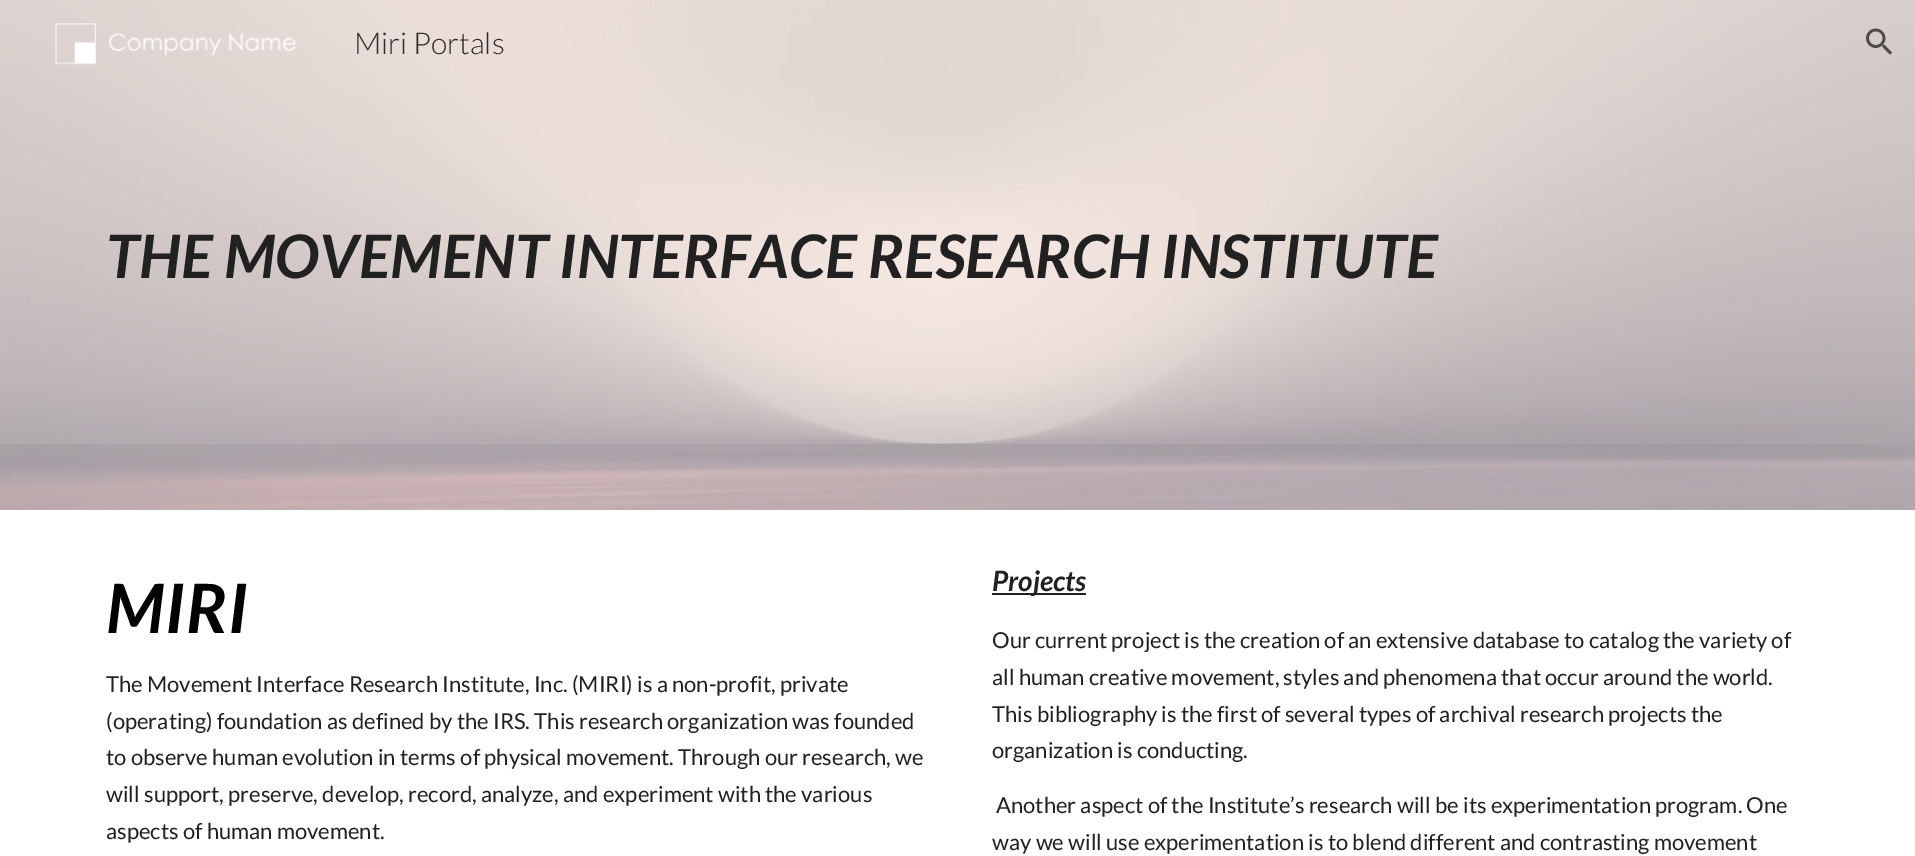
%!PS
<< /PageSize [1915 856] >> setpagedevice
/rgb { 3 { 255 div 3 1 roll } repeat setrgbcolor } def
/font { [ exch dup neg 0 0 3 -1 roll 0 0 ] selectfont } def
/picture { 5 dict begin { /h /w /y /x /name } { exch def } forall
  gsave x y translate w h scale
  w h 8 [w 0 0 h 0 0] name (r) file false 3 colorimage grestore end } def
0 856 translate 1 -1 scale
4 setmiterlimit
255 255 255 rgb
0 0 1915 856 rectfill
(img/3.rgb) 0 0 1915 510 picture
(img/1.rgb) 55 23 241 42 picture
(img/2.rgb) 1866 28 27 27 picture
33 33 33 rgb
992 593 94 2 rectfill
/Lato-Light 30 font
47 44 43 rgb
354 54 moveto (Miri Portals) show
/Lato-BoldItalic 60 font
33 33 33 rgb
106 278 moveto (THE MOVEMENT INTERFACE RESEARCH INSTITUTE) show
/Lato-BoldItalic 68 font
0 0 0 rgb
106 633 moveto 1 0 (MIRI) ashow
/Lato-Regular 22 font
33 33 33 rgb
[
  [(The Movement Interface Research Institute, Inc. \(MIRI\) is a non-profit, private) 106 692]
  [(\(operating\) foundation as defined by the IRS. This research organization was founded) 106 729]
  [(to observe human evolution in terms of physical movement. Through our research, we) 106 765]
  [(will support, preserve, develop, record, analyze, and experiment with the various) 106 802]
  [(aspects of human movement.) 106 839]
] { aload pop moveto show } forall
/Lato-BoldItalic 28 font
992 591 moveto (Projects) show
/Lato-Regular 22 font
[
  [(Our current project is the creation of an extensive database to catalog the variety of) 992 648]
  [(all human creative movement, styles and phenomena that occur around the world.) 992 685]
  [(This bibliography is the first of several types of archival research projects the) 992 722]
  [(organization is conducting.) 992 758]
  [(Another aspect of the Institute’s research will be its experimentation program. One) 996 813]
  [(way we will use experimentation is to blend different and contrasting movement) 992 850]
] { aload pop moveto show } forall
showpage
